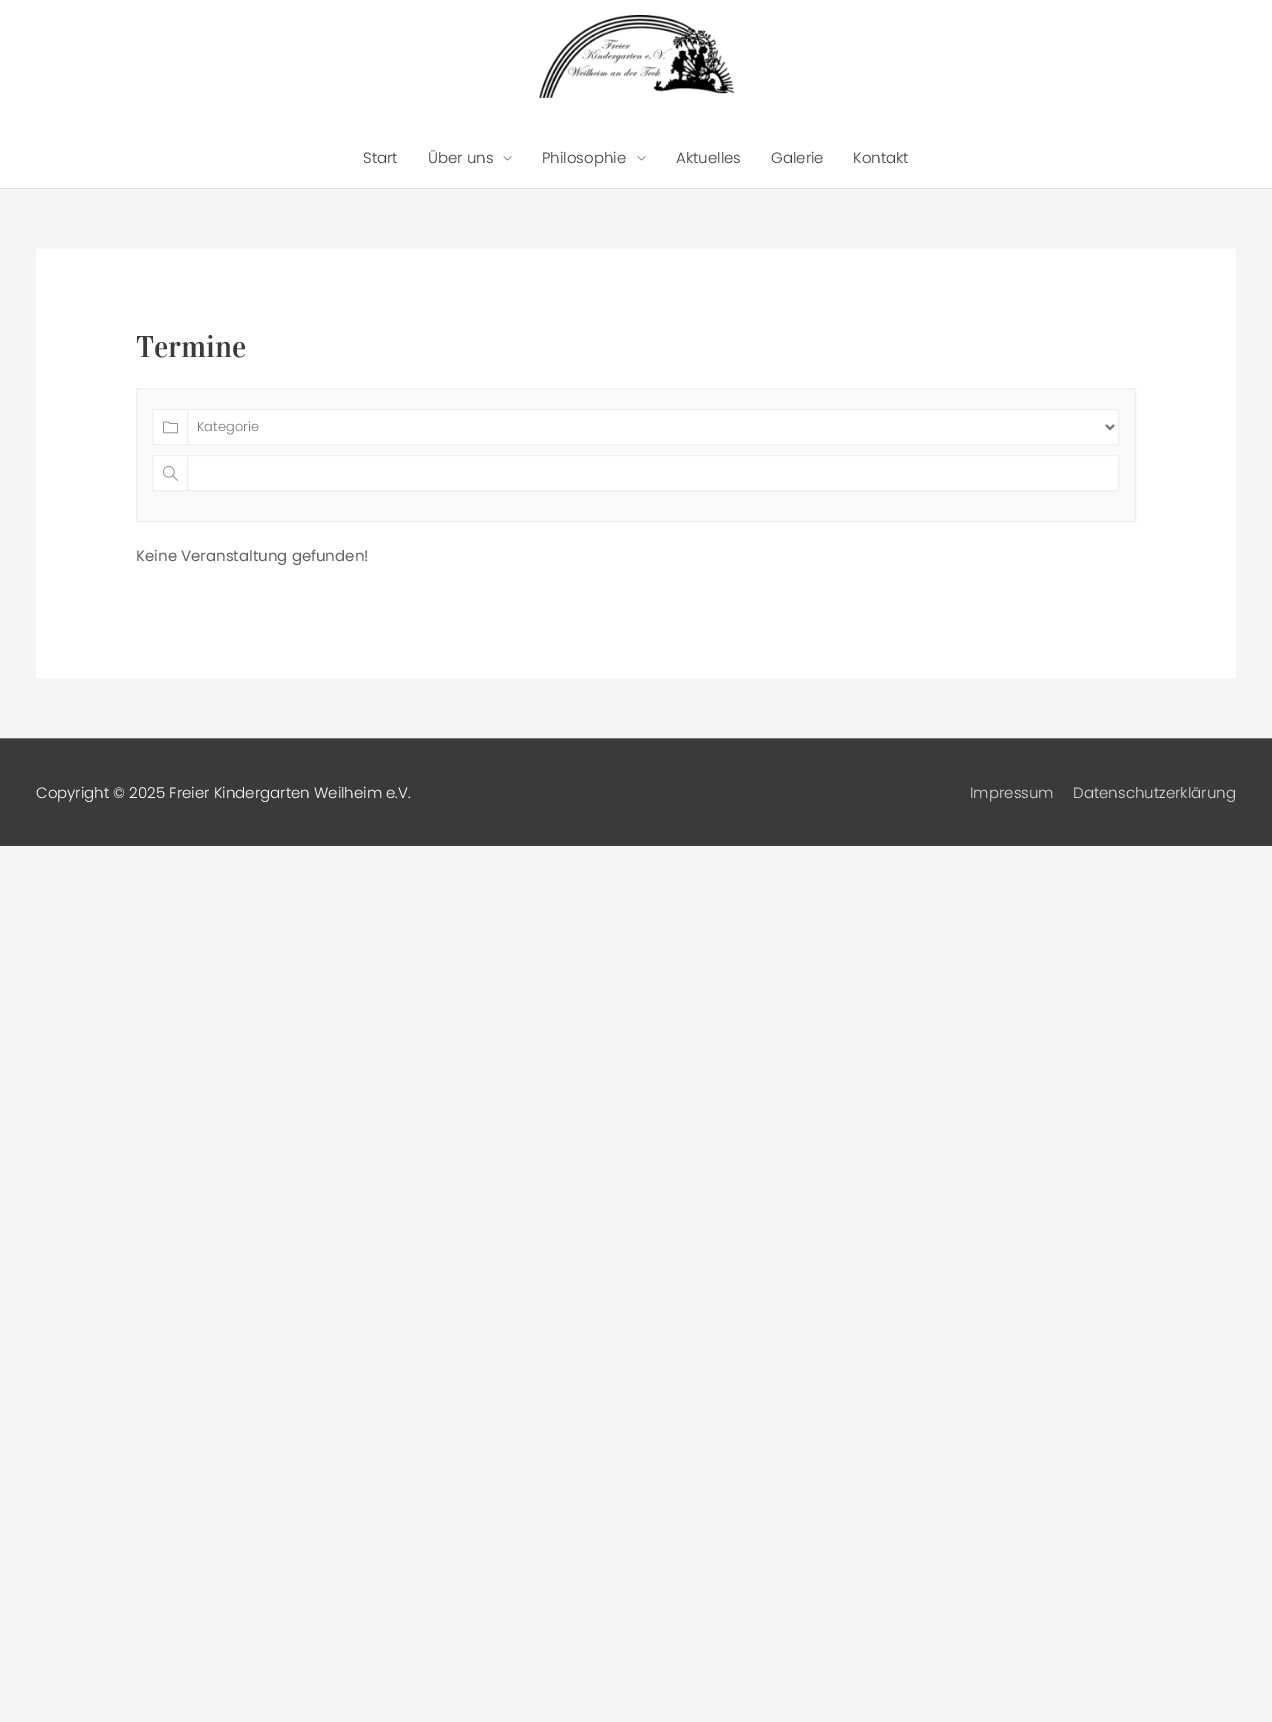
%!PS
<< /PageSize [1272 1722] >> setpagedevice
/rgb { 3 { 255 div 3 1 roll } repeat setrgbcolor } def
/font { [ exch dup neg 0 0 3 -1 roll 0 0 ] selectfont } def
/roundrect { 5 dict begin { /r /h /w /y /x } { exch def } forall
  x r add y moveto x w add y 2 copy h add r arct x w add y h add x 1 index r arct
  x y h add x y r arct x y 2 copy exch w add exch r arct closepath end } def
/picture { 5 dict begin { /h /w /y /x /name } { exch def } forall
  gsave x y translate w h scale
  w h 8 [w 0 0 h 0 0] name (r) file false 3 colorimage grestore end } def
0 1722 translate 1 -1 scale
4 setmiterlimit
245 245 245 rgb
0 0 1272 1722 rectfill
255 255 255 rgb
0 0 1272 188 rectfill
221 221 221 rgb
0 188 1272 1 rectfill
(img/1.rgb) 539 15 195 83 picture
(img/2.rgb) 503 156 9 5 picture
(img/2.rgb) 637 156 9 5 picture
255 255 255 rgb
36 249 1200 429 rectfill
250 250 250 rgb
136.5 388.5 moveto 1135.5 388.5 lineto 1135.5 521.5 lineto 136.5 521.5 lineto closepath gsave fill grestore
239 239 239 rgb
stroke
255 255 255 rgb
152.5 409.5 moveto 187.5 409.5 lineto 187.5 444.5 lineto 152.5 444.5 lineto closepath gsave fill grestore
239 239 239 rgb
stroke
(img/3.rgb) 163 421 15 13 picture
255 255 255 rgb
187.5 409.5 931 35 1.5 roundrect gsave fill grestore
239 239 239 rgb
stroke
119 119 119 rgb
2 setlinewidth
1106 425 moveto 1110 429 lineto 1114 425 lineto stroke
255 255 255 rgb
152.5 455.5 moveto 187.5 455.5 lineto 187.5 490.5 lineto 152.5 490.5 lineto closepath gsave fill grestore
239 239 239 rgb
1 setlinewidth
stroke
(img/4.rgb) 163 466 15 15 picture
255 255 255 rgb
187.5 455.5 931 35 1.5 roundrect gsave fill grestore
239 239 239 rgb
stroke
122 122 122 rgb
0 738 1272 1 rectfill
58 58 58 rgb
0 739 1272 107 rectfill
/Poppins-Light 15 font
[
  [(Start) 363 163]
  [(Über uns) 428 163]
  [(Philosophie) 542 163]
  [(Aktuelles) 676 163]
  [(Galerie) 771 163]
  [(Kontakt) 853 163]
] { aload pop moveto show } forall
/Vidaloka-Regular 30 font
136 357 moveto (Termine) show
/Poppins-Light 13 font
119 119 119 rgb
197 431 moveto (Kategorie) show
/Poppins-Regular 15 font
98 98 98 rgb
136 561 moveto (Keine Veranstaltung gefunden!) show
/Poppins-Light 15 font
255 255 255 rgb
36 798 moveto (Copyright © 2025 Freier Kindergarten Weilheim e.V.) show
221 221 221 rgb
970 798 moveto (Impressum) show
1073 798 moveto (Datenschutzerklärung) show
showpage
